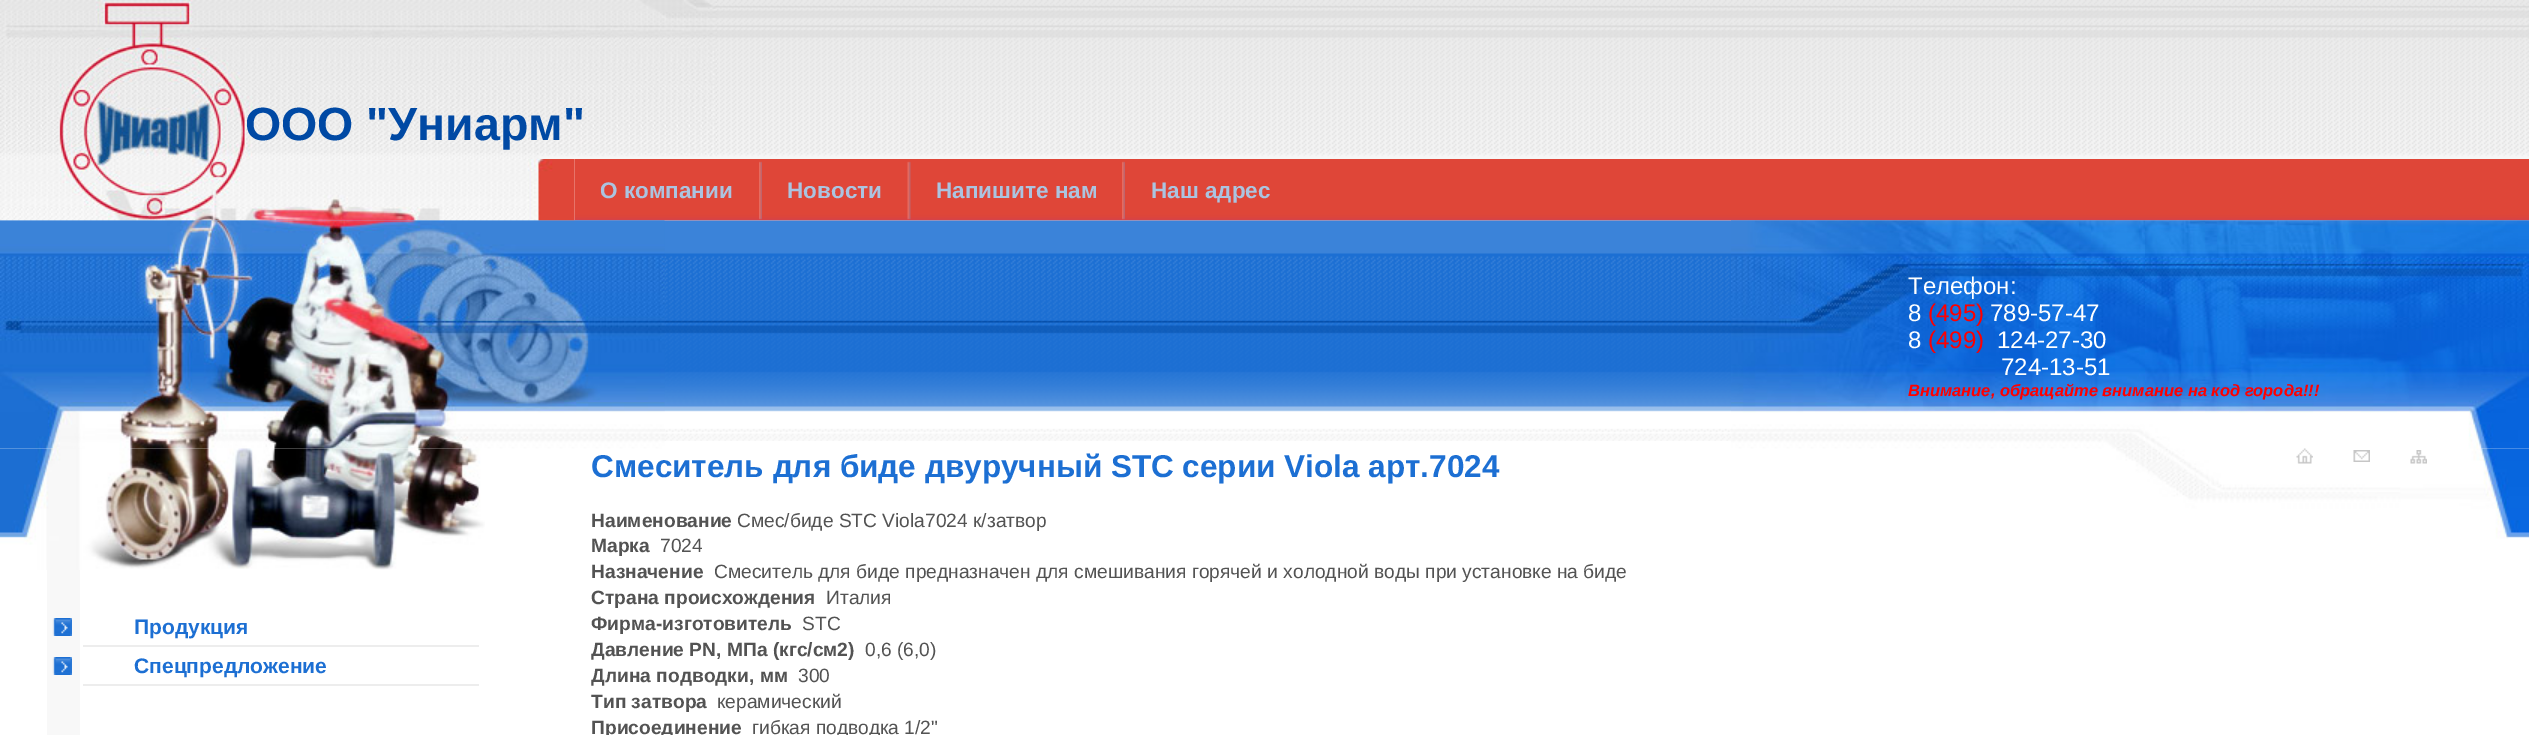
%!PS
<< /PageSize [2529 735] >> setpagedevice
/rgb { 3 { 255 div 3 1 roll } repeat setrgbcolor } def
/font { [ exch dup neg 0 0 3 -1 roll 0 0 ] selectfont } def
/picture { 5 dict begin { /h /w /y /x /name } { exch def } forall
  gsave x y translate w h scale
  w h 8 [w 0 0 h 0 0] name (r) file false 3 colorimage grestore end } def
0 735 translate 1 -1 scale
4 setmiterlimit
255 255 255 rgb
0 0 2529 735 rectfill
(img/1.rgb) 717 0 1812 159 picture
(img/2.rgb) 0 0 717 159 picture
(img/4.rgb) 574 159 1955 62 picture
(img/7.rgb) 0 220 2529 221 picture
(img/3.rgb) 0 159 575 62 picture
(img/5.rgb) 759 161 3 59 picture
(img/6.rgb) 907 161 4 59 picture
(img/5.rgb) 1122 161 3 59 picture
248 248 248 rgb
47 448 33 287 rectfill
(img/8.rgb) 0 220 665 229 picture
(img/13.rgb) 2116 448 413 91 picture
(img/9.rgb) 1731 220 414 229 picture
(img/10.rgb) 2145 220 384 229 picture
(img/11.rgb) 0 448 485 122 picture
(img/12.rgb) 52 618 20 18 picture
237 237 237 rgb
83 645 396 2 rectfill
(img/12.rgb) 52 657 20 18 picture
83 684 396 2 rectfill
(img/14.rgb) 2296 448 17 16 picture
(img/15.rgb) 2353 450 17 12 picture
(img/16.rgb) 2410 450 17 14 picture
/LiberationSans-Bold 46.5 font
0 73 164 rgb
245 140 moveto (ООО "Униарм") show
/LiberationSans-Bold 22.5 font
171 196 224 rgb
[
  [(О компании) 600 198]
  [(Новости) 787 198]
  [(Напишите нам) 936 198]
  [(Наш адрес) 1151 198]
] { aload pop moveto show } forall
/LiberationSans-Regular 24 font
255 255 255 rgb
1908 294 moveto (Телефон:) show
1908 321 moveto (8) show
255 0 0 rgb
1928 321 moveto (\(495\)) show
255 255 255 rgb
1990 321 moveto (789-57-47) show
1908 348 moveto (8) show
255 0 0 rgb
1928 348 moveto (\(499\)) show
255 255 255 rgb
1997 348 moveto (124-27-30) show
2001 375 moveto (724-13-51) show
/LiberationSans-BoldItalic 16.5 font
255 0 0 rgb
1908 396 moveto (Внимание, обращайте внимание на код города!!!) show
/LiberationSans-Bold 21 font
28 111 211 rgb
134 634 moveto (Продукция) show
134 673 moveto (Спецпредложение) show
/LiberationSans-Bold 31.5 font
591 477 moveto (Смеситель для биде двуручный STC серии Viola арт.7024) show
/LiberationSans-Bold 19.2 font
83 83 83 rgb
591 527 moveto (Наименование) show
/LiberationSans-Regular 19.2 font
737 527 moveto (Смес/биде STC Viola7024 к/затвор) show
/LiberationSans-Bold 19.2 font
591 552 moveto (Марка) show
/LiberationSans-Regular 19.2 font
660 552 moveto (7024) show
/LiberationSans-Bold 19.2 font
591 578 moveto (Назначение) show
/LiberationSans-Regular 19.2 font
714 578 moveto (Смеситель для биде предназначен для смешивания горячей и холодной воды при установке на биде) show
/LiberationSans-Bold 19.2 font
591 604 moveto (Страна происхождения) show
/LiberationSans-Regular 19.2 font
826 604 moveto (Италия) show
/LiberationSans-Bold 19.2 font
591 630 moveto (Фирма-изготовитель) show
/LiberationSans-Regular 19.2 font
802 630 moveto (STC) show
/LiberationSans-Bold 19.2 font
591 656 moveto (Давление PN, MПа \(кгс/см2\)) show
/LiberationSans-Regular 19.2 font
865 656 moveto (0,6 \(6,0\)) show
/LiberationSans-Bold 19.2 font
591 682 moveto (Длина подводки, мм) show
/LiberationSans-Regular 19.2 font
798 682 moveto (300) show
/LiberationSans-Bold 19.2 font
591 708 moveto (Тип затвора) show
/LiberationSans-Regular 19.2 font
717 708 moveto (керамический) show
/LiberationSans-Bold 19.2 font
591 734 moveto (Присоединение) show
/LiberationSans-Regular 19.2 font
752 734 moveto (гибкая подводка 1/2") show
showpage
